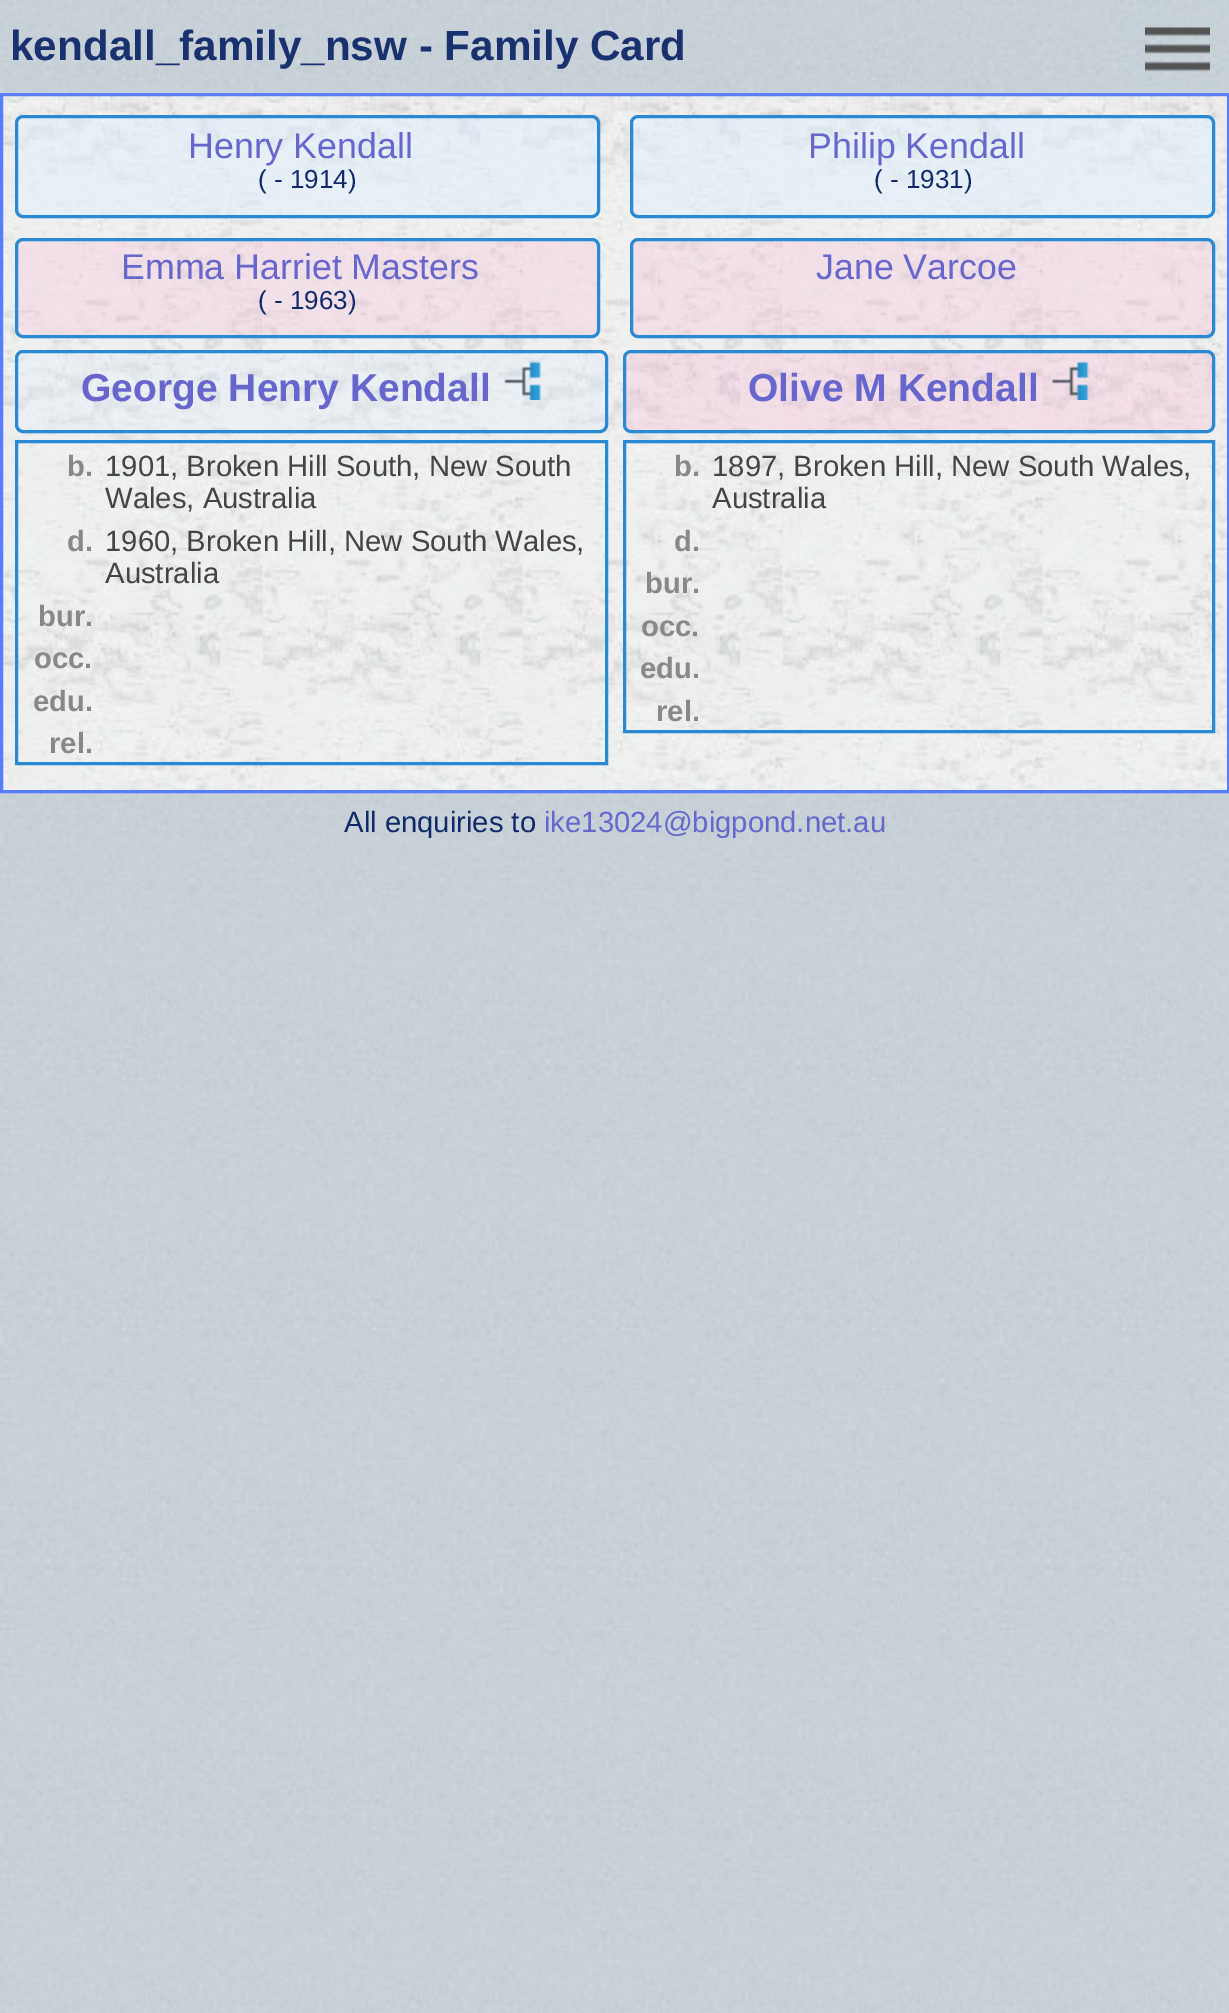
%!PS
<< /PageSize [1229 2013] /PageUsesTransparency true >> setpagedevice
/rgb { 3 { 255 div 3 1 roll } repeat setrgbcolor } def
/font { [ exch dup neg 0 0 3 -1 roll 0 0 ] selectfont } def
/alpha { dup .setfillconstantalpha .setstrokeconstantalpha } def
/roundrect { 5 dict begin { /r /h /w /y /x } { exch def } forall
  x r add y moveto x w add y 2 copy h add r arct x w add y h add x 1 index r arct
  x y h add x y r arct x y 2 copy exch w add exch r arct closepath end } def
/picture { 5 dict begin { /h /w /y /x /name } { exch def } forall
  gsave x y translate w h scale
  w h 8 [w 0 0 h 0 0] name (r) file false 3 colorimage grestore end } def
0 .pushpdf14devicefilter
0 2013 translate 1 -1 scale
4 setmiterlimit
255 255 255 rgb
0 0 1229 2013 rectfill
(img/1.rgb) 0 0 1229 2013 picture
(img/5.rgb) 0 92 1229 698 picture
86 126 252 rgb
3 setlinewidth
1.5 94.5 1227 697 rectstroke
(img/2.rgb) 0 92 1229 3 picture
0.95 alpha
0 93 1229 2 rectfill
1 alpha
(img/3.rgb) 1120 0 109 87 picture
(img/4.rgb) 1145 27 65 45 picture
0.51 alpha
224 239 254 rgb
16.5 116.5 582 100 6.5 roundrect fill
1 alpha
41 137 211 rgb
16.5 116.5 582 100 6.5 roundrect stroke
0.51 alpha
224 239 254 rgb
631.5 116.5 582 100 6.5 roundrect fill
1 alpha
41 137 211 rgb
631.5 116.5 582 100 6.5 roundrect stroke
0.28 alpha
252 183 214 rgb
16.5 239.5 582 97 6.5 roundrect fill
1 alpha
41 137 211 rgb
16.5 239.5 582 97 6.5 roundrect stroke
0.28 alpha
252 183 214 rgb
631.5 239.5 582 97 6.5 roundrect fill
1 alpha
41 137 211 rgb
631.5 239.5 582 97 6.5 roundrect stroke
0.3 alpha
224 239 254 rgb
16.5 351.5 590 80 6.5 roundrect fill
1 alpha
41 137 211 rgb
16.5 351.5 590 80 6.5 roundrect stroke
(img/6.rgb) 504 361 37 39 picture
0.3 alpha
252 183 214 rgb
624.5 351.5 589 80 6.5 roundrect fill
1 alpha
41 137 211 rgb
624.5 351.5 589 80 6.5 roundrect stroke
(img/7.rgb) 1051 361 38 39 picture
16.5 441.5 590 322 rectstroke
624.5 441.5 589 290 rectstroke
/LiberationSans-Bold 42.25 font
25 50 111 rgb
10 60 moveto (kendall_family_nsw - Family Card) show
/LiberationSans-Regular 35.75 font
102 102 204 rgb
188 158 moveto (Henry Kendall) show
/LiberationSans-Regular 26 font
16 42 105 rgb
258 188 moveto (\( - 1914\)) show
/LiberationSans-Regular 35.75 font
102 102 204 rgb
808 158 moveto (Philip Kendall) show
/LiberationSans-Regular 26 font
16 42 105 rgb
874 188 moveto (\( - 1931\)) show
/LiberationSans-Regular 35.75 font
102 102 204 rgb
121 279 moveto (Emma Harriet Masters) show
/LiberationSans-Regular 26 font
16 42 105 rgb
258 309 moveto (\( - 1963\)) show
/LiberationSans-Regular 35.75 font
102 102 204 rgb
816 279 moveto (Jane Varcoe) show
/LiberationSans-Bold 39 font
81 401 moveto (George Henry Kendall) show
748 401 moveto (Olive M Kendall) show
/LiberationSans-Bold 29.25 font
136 136 136 rgb
67 476 moveto (b.) show
/LiberationSans-Regular 29.25 font
68 68 68 rgb
105 476 moveto (1901, Broken Hill South, New South) show
105 508 moveto (Wales, Australia) show
/LiberationSans-Bold 29.25 font
136 136 136 rgb
67 551 moveto (d.) show
/LiberationSans-Regular 29.25 font
68 68 68 rgb
105 551 moveto (1960, Broken Hill, New South Wales,) show
105 583 moveto (Australia) show
/LiberationSans-Bold 29.25 font
136 136 136 rgb
[
  [(bur.) 38 626]
  [(occ.) 34 668]
  [(edu.) 33 711]
  [(rel.) 49 753]
  [(b.) 674 476]
] { aload pop moveto show } forall
/LiberationSans-Regular 29.25 font
68 68 68 rgb
712 476 moveto (1897, Broken Hill, New South Wales,) show
712 508 moveto (Australia) show
/LiberationSans-Bold 29.25 font
136 136 136 rgb
[
  [(d.) 674 551]
  [(bur.) 645 593]
  [(occ.) 641 636]
  [(edu.) 640 678]
  [(rel.) 656 721]
] { aload pop moveto show } forall
/LiberationSans-Regular 29.25 font
16 42 105 rgb
344 832 moveto (All enquiries to) show
102 102 204 rgb
544 832 moveto (ike13024@bigpond.net.au) show
.poppdf14devicefilter showpage
